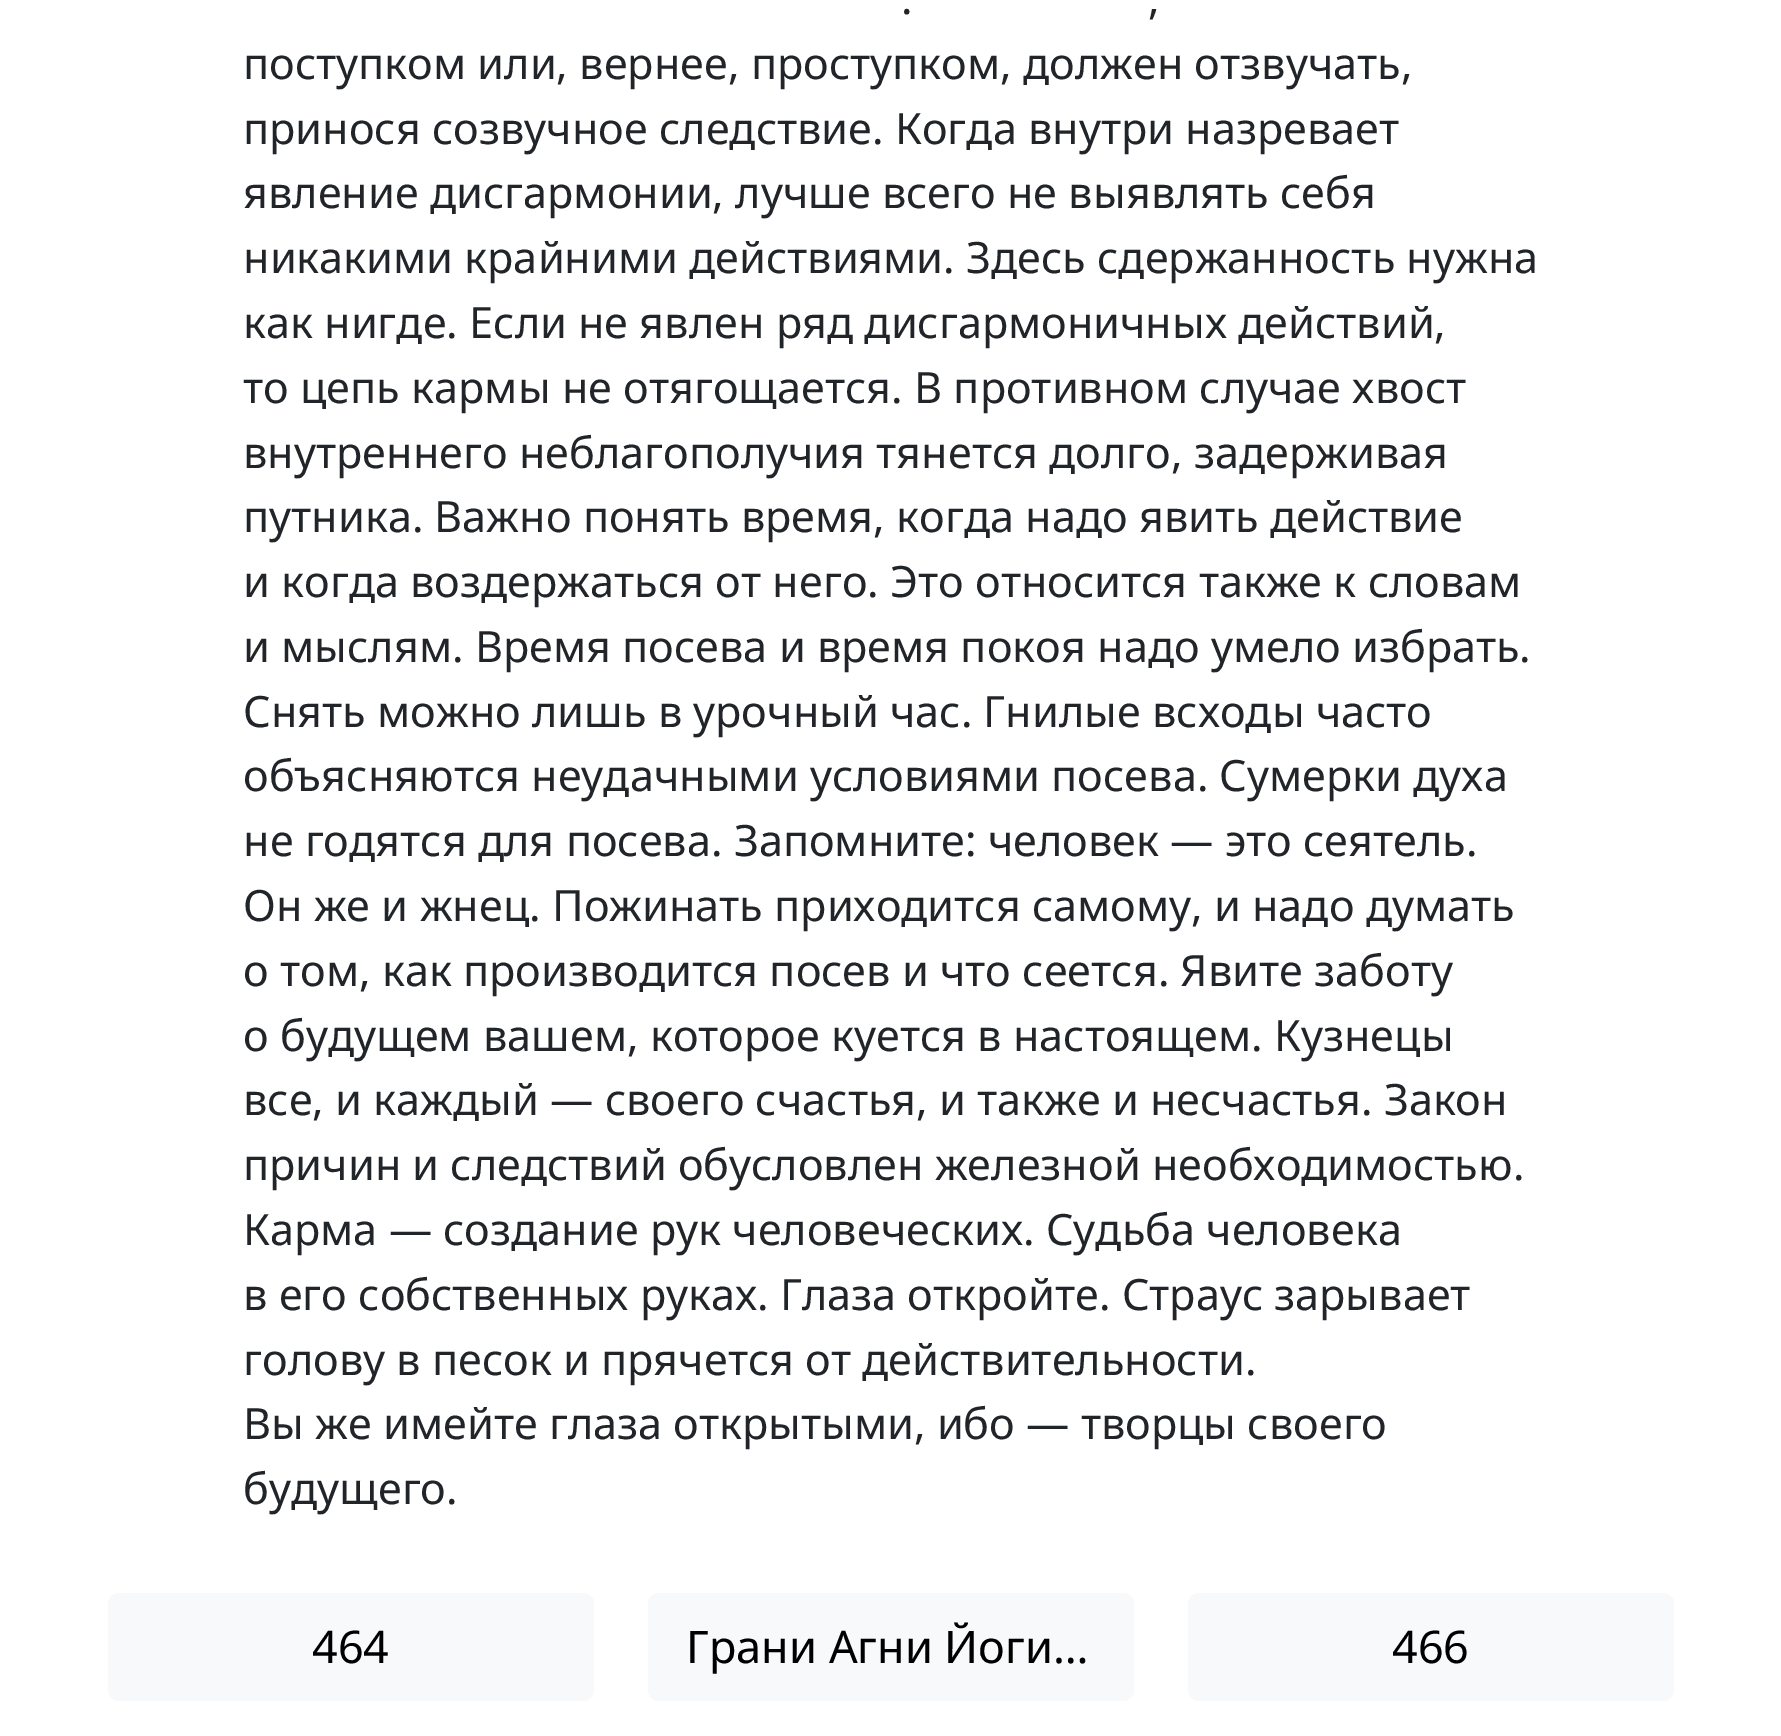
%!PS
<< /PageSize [1781 1736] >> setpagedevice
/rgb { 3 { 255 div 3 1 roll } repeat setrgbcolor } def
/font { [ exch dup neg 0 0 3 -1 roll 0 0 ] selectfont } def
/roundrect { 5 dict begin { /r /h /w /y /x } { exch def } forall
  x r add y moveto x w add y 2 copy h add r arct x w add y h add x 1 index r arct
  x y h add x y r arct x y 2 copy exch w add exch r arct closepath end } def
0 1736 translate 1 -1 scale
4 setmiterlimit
255 255 255 rgb
0 0 1781 1736 rectfill
248 249 250 rgb
108 1593 486 108 11 roundrect fill
648 1593 486 108 11 roundrect fill
1188 1593 486 108 11 roundrect fill
/NotoSans-Regular 43.2 font
33 37 41 rgb
[
  [(.) 901 14]
  [(,) 1148 14]
  [(поступком или, вернее, проступком, должен отзвучать,) 243 79]
  [(принося созвучное следствие. Когда внутри назревает) 243 144]
  [(явление дисгармонии, лучше всего не выявлять себя) 243 208]
  [(никакими крайними действиями. Здесь сдержанность нужна) 243 273]
  [(как нигде. Если не явлен ряд дисгармоничных действий,) 243 338]
  [(то цепь кармы не отягощается. В противном случае хвост) 243 403]
  [(внутреннего неблагополучия тянется долго, задерживая) 243 468]
  [(путника. Важно понять время, когда надо явить действие) 243 532]
  [(и когда воздержаться от него. Это относится также к словам) 243 597]
  [(и мыслям. Время посева и время покоя надо умело избрать.) 243 662]
  [(Снять можно лишь в урочный час. Гнилые всходы часто) 243 727]
  [(объясняются неудачными условиями посева. Сумерки духа) 243 791]
  [(не годятся для посева. Запомните: человек — это сеятель.) 243 856]
  [(Он же и жнец. Пожинать приходится самому, и надо думать) 243 921]
  [(о том, как производится посев и что сеется. Явите заботу) 243 986]
  [(о будущем вашем, которое куется в настоящем. Кузнецы) 243 1051]
  [(все, и каждый — своего счастья, и также и несчастья. Закон) 243 1115]
  [(причин и следствий обусловлен железной необходимостью.) 243 1180]
  [(Карма — создание рук человеческих. Судьба человека) 243 1245]
  [(в его собственных руках. Глаза откройте. Страус зарывает) 243 1310]
  [(голову в песок и прячется от действительности.) 243 1375]
  [(Вы же имейте глаза открытыми, ибо — творцы своего) 243 1439]
  [(будущего.) 243 1504]
] { aload pop moveto show } forall
/NotoSans-Regular 45 font
0 0 0 rgb
[
  [(464) 312 1663]
  [(Грани Агни Йоги…) 686 1663]
  [(466) 1392 1663]
] { aload pop moveto show } forall
showpage
